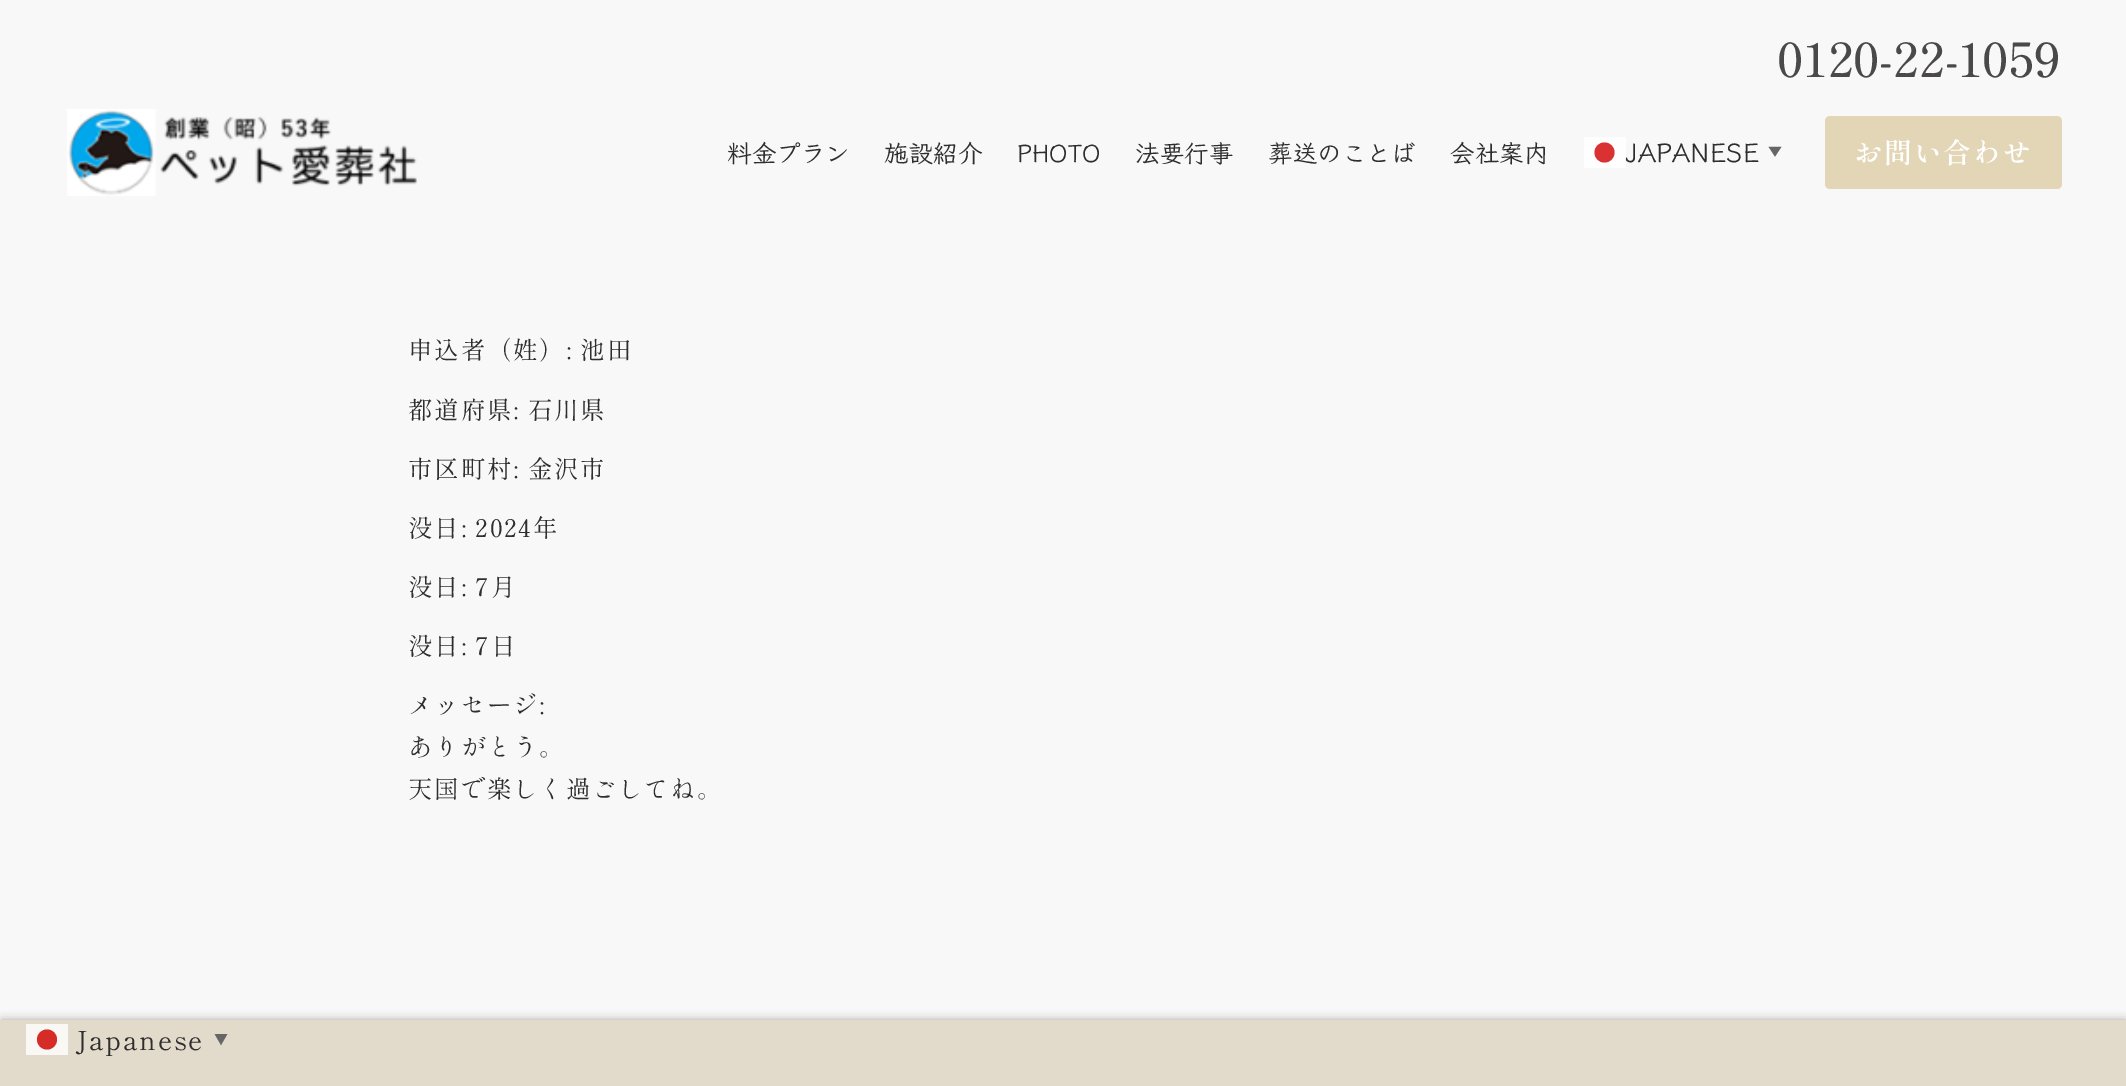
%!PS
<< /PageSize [2126 1086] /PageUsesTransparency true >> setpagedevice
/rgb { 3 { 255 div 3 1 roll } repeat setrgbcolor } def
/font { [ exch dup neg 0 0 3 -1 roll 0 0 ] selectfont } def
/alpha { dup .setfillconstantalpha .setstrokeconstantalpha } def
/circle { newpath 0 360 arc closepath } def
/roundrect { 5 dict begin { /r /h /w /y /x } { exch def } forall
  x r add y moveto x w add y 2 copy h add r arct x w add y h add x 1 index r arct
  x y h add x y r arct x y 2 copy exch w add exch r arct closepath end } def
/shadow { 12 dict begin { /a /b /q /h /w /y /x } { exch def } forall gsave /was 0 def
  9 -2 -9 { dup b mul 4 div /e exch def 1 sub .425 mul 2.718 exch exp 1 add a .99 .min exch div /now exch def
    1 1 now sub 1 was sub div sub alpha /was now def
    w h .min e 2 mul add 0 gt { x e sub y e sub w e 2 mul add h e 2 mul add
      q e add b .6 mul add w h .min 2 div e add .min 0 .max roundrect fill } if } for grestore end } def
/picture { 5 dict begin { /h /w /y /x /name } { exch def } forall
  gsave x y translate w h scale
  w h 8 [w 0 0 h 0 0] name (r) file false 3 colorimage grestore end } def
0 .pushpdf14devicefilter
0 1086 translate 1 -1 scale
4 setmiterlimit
248 248 248 rgb
0 0 2126 1086 rectfill
(img/1.rgb) 67 109 350 87 picture
227 214 183 rgb
1825 116 237 73 5 roundrect fill
0 0 0 rgb
2 1022 2123 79 0 5 0.5 shadow
226 218 202 rgb
0 1020 2126 66 rectfill
249 248 244 rgb
26 1024 42 31 rectfill
214 44 40 rgb
47 1039.5 10 circle fill
/ShipporiMinchoB1-Medium 47.25 font
74 72 72 rgb
1777 77 moveto (0120-22-1059) show
/KleeOne-SemiBold 24.5 font
46 46 46 rgb
[
  [(料金プラン) 727 162]
  [(施設紹介) 884 162]
  [(PHOTO) 1017 162]
  [(法要行事) 1135 162]
  [(葬送のことば) 1268 162]
  [(会社案内) 1450 162]
] { aload pop moveto show } forall
/KleeOne-SemiBold 26.25 font
1625 162 moveto (JAPANESE) show
0.8 alpha
255 255 255 rgb
1584 137 42 31 rectfill
1 alpha
218 50 50 rgb
1604.5 152.5 10 circle fill
/KleeOne-SemiBold 14 font
102 102 102 rgb
1768 157 moveto (▼) show
/ShipporiMinchoB1-SemiBold 28 font
255 255 255 rgb
1854 163 moveto 1.75 0 (お問い合わせ) ashow
/ShipporiMinchoB1-Regular 24.5 font
46 46 46 rgb
408 359 moveto 1.75 0 (申込者（姓）: 池田) ashow
408 419 moveto 1.75 0 (都道府県: 石川県) ashow
408 478 moveto 1.75 0 (市区町村: 金沢市) ashow
408 537 moveto 1.75 0 (没日: 2024年) ashow
408 596 moveto 1.75 0 (没日: 7月) ashow
408 655 moveto 1.75 0 (没日: 7日) ashow
408 714 moveto 1.75 0 (メッセージ:) ashow
408 756 moveto 1.75 0 (ありがとう。) ashow
408 798 moveto 1.75 0 (天国で楽しく過ごしてね。) ashow
/ShipporiMinchoB1-Regular 26.25 font
76 1050 moveto 1.75 0 (Japanese) ashow
/ShipporiMinchoB1-SemiBold 14 font
102 102 102 rgb
214 1045 moveto 1.75 0 (▼) ashow
.poppdf14devicefilter showpage
